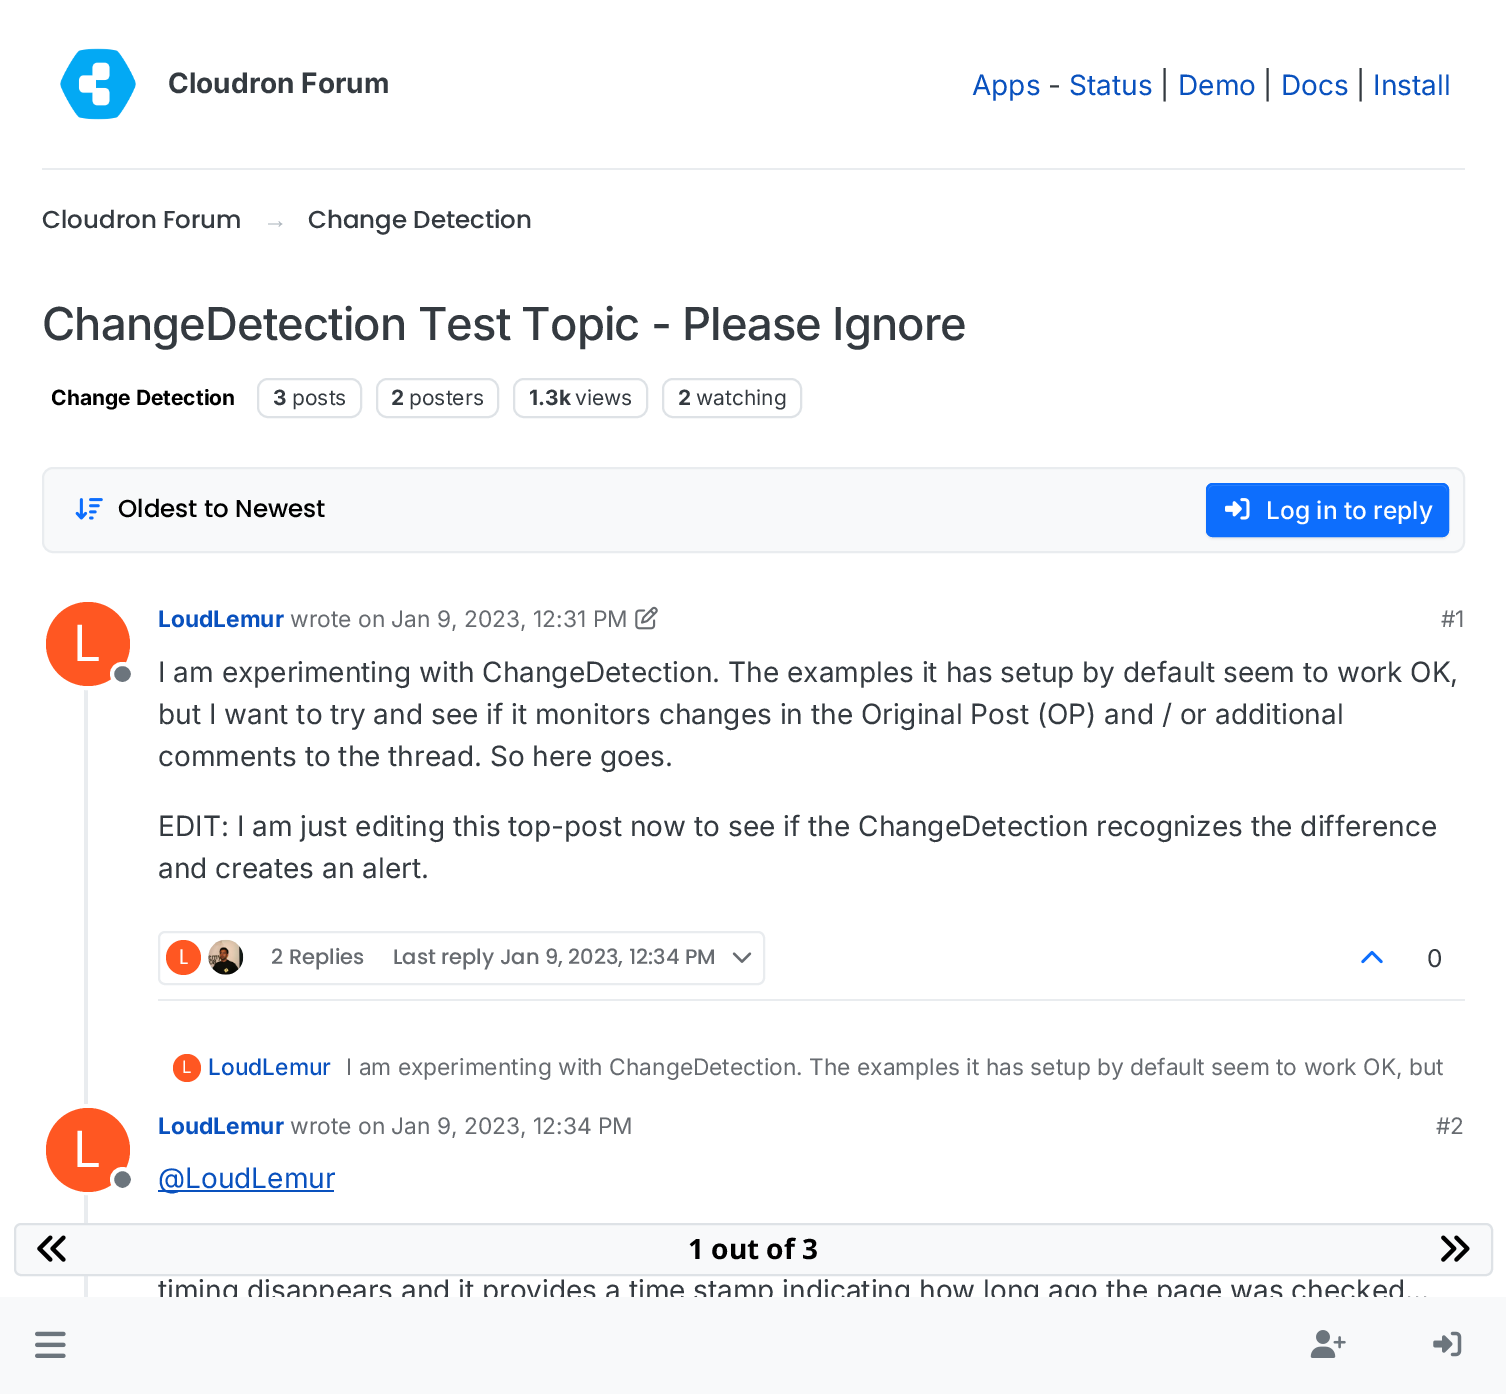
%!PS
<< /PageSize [1506 1394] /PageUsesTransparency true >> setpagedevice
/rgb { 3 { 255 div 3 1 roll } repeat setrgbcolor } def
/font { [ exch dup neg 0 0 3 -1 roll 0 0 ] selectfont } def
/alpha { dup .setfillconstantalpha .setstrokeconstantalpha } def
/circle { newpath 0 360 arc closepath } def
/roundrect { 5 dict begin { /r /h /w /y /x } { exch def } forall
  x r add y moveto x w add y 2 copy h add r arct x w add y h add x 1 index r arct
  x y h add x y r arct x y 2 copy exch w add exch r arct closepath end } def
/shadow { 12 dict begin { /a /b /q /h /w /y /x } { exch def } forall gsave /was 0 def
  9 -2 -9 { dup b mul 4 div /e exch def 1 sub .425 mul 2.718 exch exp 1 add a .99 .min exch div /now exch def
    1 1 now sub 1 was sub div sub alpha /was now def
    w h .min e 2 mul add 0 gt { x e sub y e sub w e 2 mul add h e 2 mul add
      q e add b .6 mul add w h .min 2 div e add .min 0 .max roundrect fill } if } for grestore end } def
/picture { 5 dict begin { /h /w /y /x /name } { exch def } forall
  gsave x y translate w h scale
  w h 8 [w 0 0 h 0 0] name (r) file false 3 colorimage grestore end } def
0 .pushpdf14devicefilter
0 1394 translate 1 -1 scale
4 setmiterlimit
255 255 255 rgb
0 0 1506 1394 rectfill
233 236 239 rgb
42 168 1423 2 rectfill
(img/1.rgb) 60 48 76 72 picture
222 226 230 rgb
2 setlinewidth
258 379 103 38 10 roundrect stroke
377 379 121 38 10 roundrect stroke
514 379 133 38 10 roundrect stroke
663 379 138 38 10 roundrect stroke
248 249 250 rgb
43 468 1421 84 10 roundrect gsave fill grestore
233 236 239 rgb
stroke
(img/2.rgb) 75 498 28 22 picture
0 0 0 rgb
1206 485 243 54 7 1 0.07 shadow
13 110 253 rgb
1206 483 243 54 7 roundrect fill
49 132 253 rgb
1213 486 moveto 1442 486 lineto 1445 486 1447 489 1447 492 curveto 1447 489 1447 486 1443 485 curveto 1212 485 lineto 1208 486 1208 489 1208 492 curveto 1208 489 1210 486 1213 486 curveto closepath fill
13 110 253 rgb
1207 484 241 52 6 roundrect stroke
(img/3.rgb) 1225 498 25 22 picture
233 236 239 rgb
84 685 4 612 rectfill
255 255 255 rgb
4 setlinewidth
87.5 644.5 43.5 circle stroke
255 87 34 rgb
88 644 42 circle fill
108 117 125 rgb
112 664 21 20 10 roundrect gsave fill grestore
255 255 255 rgb
stroke
(img/4.rgb) 635 606 23 24 picture
233 236 239 rgb
158 999 1307 2 rectfill
2 setlinewidth
159 932 605 52 6 roundrect stroke
255 87 34 rgb
183.5 957.5 17.5 circle fill
(img/5.rgb) 208 939 36 36 picture
(img/6.rgb) 732 952 20 11 picture
(img/7.rgb) 1361 950 22 14 picture
187 1068 14 circle fill
255 255 255 rgb
4 setlinewidth
87.5 1149.5 43.5 circle stroke
255 87 34 rgb
88 1150 42 circle fill
108 117 125 rgb
122.5 1179.5 10.5 circle gsave fill grestore
255 255 255 rgb
stroke
9 81 190 rgb
158 1190 176 2 rectfill
248 249 250 rgb
15 1224 1477 51 6 roundrect gsave fill grestore
222 226 230 rgb
2 setlinewidth
stroke
(img/8.rgb) 37 1235 29 27 picture
(img/9.rgb) 1441 1235 29 27 picture
/Inter-Bold 28 font
52 58 64 rgb
168 93 moveto (Cloudron Forum) show
/Inter-Regular 28 font
9 81 190 rgb
972 95 moveto (Apps) show
52 58 64 rgb
1048 95 moveto (-) show
9 81 190 rgb
1069 95 moveto (Status) show
52 58 64 rgb
1160 95 moveto (|) show
9 81 190 rgb
1178 95 moveto (Demo) show
52 58 64 rgb
1263 95 moveto (|) show
9 81 190 rgb
1281 95 moveto (Docs) show
52 58 64 rgb
1356 95 moveto (|) show
9 81 190 rgb
1373 95 moveto (Install) show
/Poppins-Medium 24.5 font
52 58 64 rgb
42 228 moveto (Cloudron Forum) show
/LiberationSans-Regular 24.5 font
173 181 189 rgb
263 228 moveto (→) show
/Poppins-Medium 24.5 font
52 58 64 rgb
308 228 moveto (Change Detection) show
/Inter-Medium 45.4 font
42 340 moveto -0.9 0 (ChangeDetection Test Topic - Please Ignore) ashow
/Inter-Bold 21 font
0 0 0 rgb
51 405 moveto (Change Detection) show
52 58 64 rgb
273 405 moveto (3) show
/Inter-Regular 21 font
292 405 moveto (posts) show
/Inter-Bold 21 font
391 405 moveto (2) show
/Inter-Regular 21 font
409 405 moveto (posters) show
/Inter-Bold 21 font
529 405 moveto (1.3k) show
/Inter-Regular 21 font
575 405 moveto (views) show
/Inter-Bold 21 font
678 405 moveto (2) show
/Inter-Regular 21 font
696 405 moveto (watching) show
/Poppins-Medium 24.5 font
0 0 0 rgb
118 517 moveto (Oldest to Newest) show
/Inter-Medium 24.5 font
255 255 255 rgb
1266 519 moveto (Log in to reply) show
/Inter-Regular 50 font
73 661 moveto (L) show
/Inter-Bold 22.75 font
9 81 190 rgb
158 627 moveto (LoudLemur) show
/Inter-Regular 22.75 font
103 107 112 rgb
290 627 moveto (wrote on Jan 9, 2023, 12:31 PM) show
1441 627 moveto (#1) show
/Inter-Regular 28 font
52 58 64 rgb
[
  [(I am experimenting with ChangeDetection. The examples it has setup by default seem to work OK,) 158 682]
  [(but I want to try and see if it monitors changes in the Original Post \(OP\) and / or additional) 158 724]
  [(comments to the thread. So here goes.) 158 766]
  [(EDIT: I am just editing this top-post now to see if the ChangeDetection recognizes the difference) 158 836]
  [(and creates an alert.) 158 878]
] { aload pop moveto show } forall
/Poppins-Regular 21 font
255 255 255 rgb
179 964 moveto (L) show
/Poppins-Medium 21 font
103 107 112 rgb
271 964 moveto (2 Replies) show
393 964 moveto (Last reply Jan 9, 2023, 12:34 PM) show
/Inter-Regular 24.5 font
52 58 64 rgb
1427 967 moveto (0) show
/Inter-Regular 17 font
255 255 255 rgb
182 1073 moveto (L) show
/Inter-Medium 22.75 font
9 81 190 rgb
208 1075 moveto (LoudLemur) show
/Inter-Regular 22.75 font
103 107 112 rgb
346 1075 moveto (I am experimenting with ChangeDetection. The examples it has setup by default seem to work OK, but) show
/Inter-Regular 50 font
255 255 255 rgb
73 1167 moveto (L) show
/Inter-Bold 22.75 font
9 81 190 rgb
158 1134 moveto (LoudLemur) show
/Inter-Regular 22.75 font
103 107 112 rgb
290 1134 moveto (wrote on Jan 9, 2023, 12:34 PM) show
1436 1134 moveto (#2) show
/Inter-Regular 28 font
9 81 190 rgb
158 1188 moveto (@LoudLemur) show
52 58 64 rgb
158 1300 moveto (timing disappears and it provides a time stamp indicating how long ago the page was checked...) show
/NotoSans-Bold 28 font
0 0 0 rgb
688 1259 moveto (1 out of 3) show
248 249 250 rgb
0 1297 1506 97 rectfill
(img/10.rgb) 35 1331 31 27 picture
(img/11.rgb) 1310 1330 36 28 picture
(img/12.rgb) 1433 1331 29 26 picture
.poppdf14devicefilter showpage
